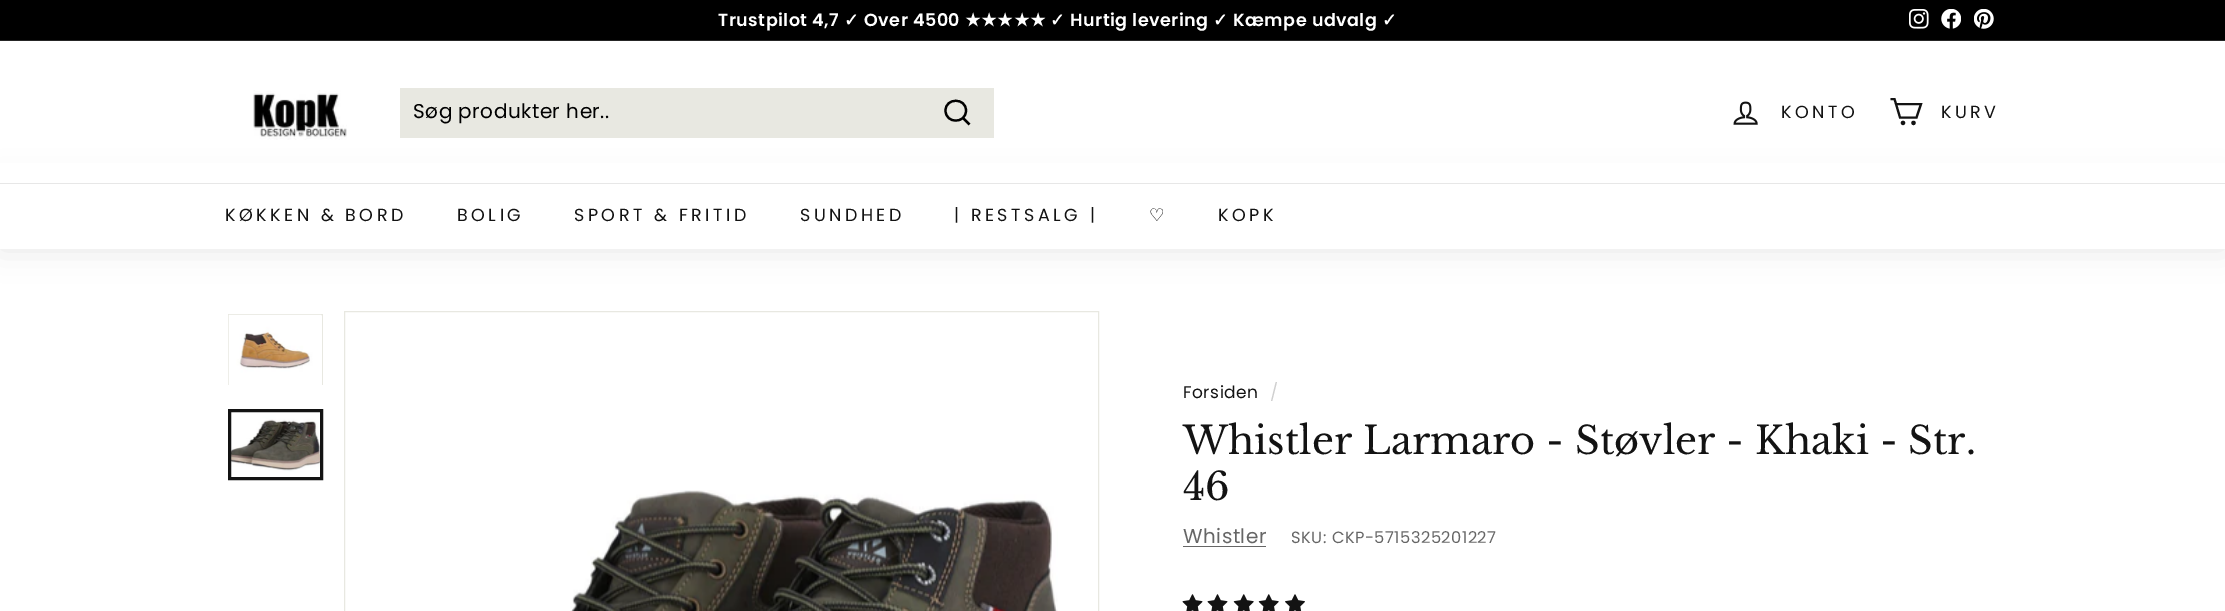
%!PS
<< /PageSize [2225 611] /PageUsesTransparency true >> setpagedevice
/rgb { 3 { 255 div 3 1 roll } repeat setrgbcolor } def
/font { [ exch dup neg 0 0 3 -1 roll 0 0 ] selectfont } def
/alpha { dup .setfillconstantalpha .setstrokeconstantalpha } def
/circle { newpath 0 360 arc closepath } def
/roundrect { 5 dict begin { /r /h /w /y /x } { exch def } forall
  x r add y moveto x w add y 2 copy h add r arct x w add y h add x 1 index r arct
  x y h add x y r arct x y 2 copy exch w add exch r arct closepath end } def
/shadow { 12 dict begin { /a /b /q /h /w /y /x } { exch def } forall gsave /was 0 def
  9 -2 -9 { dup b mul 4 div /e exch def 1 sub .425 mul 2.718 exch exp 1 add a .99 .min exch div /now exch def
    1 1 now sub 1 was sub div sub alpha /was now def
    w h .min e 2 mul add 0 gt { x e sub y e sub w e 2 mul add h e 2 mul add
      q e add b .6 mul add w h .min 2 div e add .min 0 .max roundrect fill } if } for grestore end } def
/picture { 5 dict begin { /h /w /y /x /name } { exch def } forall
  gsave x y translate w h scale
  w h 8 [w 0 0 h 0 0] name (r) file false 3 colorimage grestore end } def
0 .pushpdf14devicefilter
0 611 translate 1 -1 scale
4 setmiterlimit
255 255 255 rgb
0 0 2225 611 rectfill
0 0 0 rgb
0 0 2225 40 rectfill
(img/1.rgb) 1909 9 20 20 picture
(img/2.rgb) 1941 9 20 20 picture
(img/3.rgb) 1974 9 20 20 picture
38 38 38 rgb
0 40 2225 1 rectfill
0 0 0 rgb
0 183 2225 66 0 15.5 0.1 shadow
255 255 255 rgb
0 163 2225 20 rectfill
(img/4.rgb) 253 90 94 50 picture
232 232 225 rgb
400 88 594 50 rectfill
0 0 0 rgb
2.2 setlinewidth
966 110.5 moveto 966 124 945.5 124 945.5 110.5 curveto 945.5 97.5 966 97.5 966 110.5 curveto closepath 969.5 124.5 moveto 963 118 lineto stroke
(img/5.rgb) 1733 101 25 24 picture
19 19 19 rgb
2.1 setlinewidth
1896 104 moveto 1921 104 lineto 1916.5 117.5 lineto 1900 117.5 lineto 1894.5 99 lineto 1890.5 99 lineto stroke
1903 122.9 1.1 circle stroke
1913.5 122.9 1.1 circle stroke
255 255 255 rgb
0 184 2225 65 rectfill
231 231 231 rgb
0 183 2225 1 rectfill
gsave
228 314 95 71 rectclip
232 232 225 rgb
1 setlinewidth
228.5 314.5 94 71 rectstroke
grestore
(img/6.rgb) 228 314 93 71 picture
(img/7.rgb) 231 412 89 65 picture
19 19 19 rgb
3 setlinewidth
229.5 410.5 92 68 rectstroke
232 232 225 rgb
1 setlinewidth
344.5 311.5 754 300 rectstroke
(img/8.rgb) 570 490 488 121 picture
102 102 102 rgb
1183 546 83 1 rectfill
(img/9.rgb) 1182 594 21 17 picture
(img/9.rgb) 1207 594 21 17 picture
(img/10.rgb) 1233 594 21 17 picture
(img/10.rgb) 1258 594 21 17 picture
(img/11.rgb) 1285 594 20 17 picture
/Poppins-SemiBold 17.5 font
255 255 255 rgb
718 26 moveto 0.5 0 (Trustpilot 4,7) ashow
/DejaVuSans-Bold 17.5 font
844 26 moveto 0.5 0 (✓) ashow
/Poppins-SemiBold 17.5 font
864 26 moveto 0.5 0 (Over 4500) ashow
/DejaVuSans-Bold 17.5 font
965 26 moveto 0.5 0 (★★★★★) ashow
1050 26 moveto 0.5 0 (✓) ashow
/Poppins-SemiBold 17.5 font
1070 26 moveto 0.5 0 (Hurtig levering) ashow
/DejaVuSans-Bold 17.5 font
1213 26 moveto 0.5 0 (✓) ashow
/Poppins-SemiBold 17.5 font
1233 26 moveto 0.5 0 (Kæmpe udvalg) ashow
/DejaVuSans-Bold 17.5 font
1382 26 moveto 0.5 0 (✓) ashow
/Poppins-Regular 20 font
0 0 0 rgb
413 118 moveto 0.5 0 (Søg produkter her..) ashow
/Poppins-Regular 17.5 font
19 19 19 rgb
1781 118 moveto 3.5 0 (KONTO) ashow
1941 118 moveto 3.5 0 (KURV) ashow
225 221 moveto 3.5 0 (KØKKEN & BORD) ashow
457 221 moveto 3.5 0 (BOLIG) ashow
574 221 moveto 3.5 0 (SPORT & FRITID) ashow
800 221 moveto 3.5 0 (SUNDHED) ashow
954 221 moveto 3.5 0 (| RESTSALG |) ashow
/DejaVuSans-Regular 17.5 font
1149 221 moveto 3.5 0 (♡) ashow
/Poppins-Regular 17.5 font
1218 221 moveto 3.5 0 (KOPK) ashow
/Poppins-Regular 17 font
1183 398 moveto 0.5 0 (Forsiden) ashow
208 208 208 rgb
1270 398 moveto 0.5 0 (/) ashow
/LibreBaskerville-Regular 38.25 font
19 19 19 rgb
1183 454 moveto (Whistler Larmaro - Støvler - Khaki - Str.) show
1183 500 moveto (46) show
/Poppins-Regular 20 font
102 102 102 rgb
1183 543 moveto 0.5 0 (Whistler) ashow
/Poppins-Regular 16.25 font
1291 543 moveto 0.5 0 (SKU: CKP-5715325201227) ashow
.poppdf14devicefilter showpage
